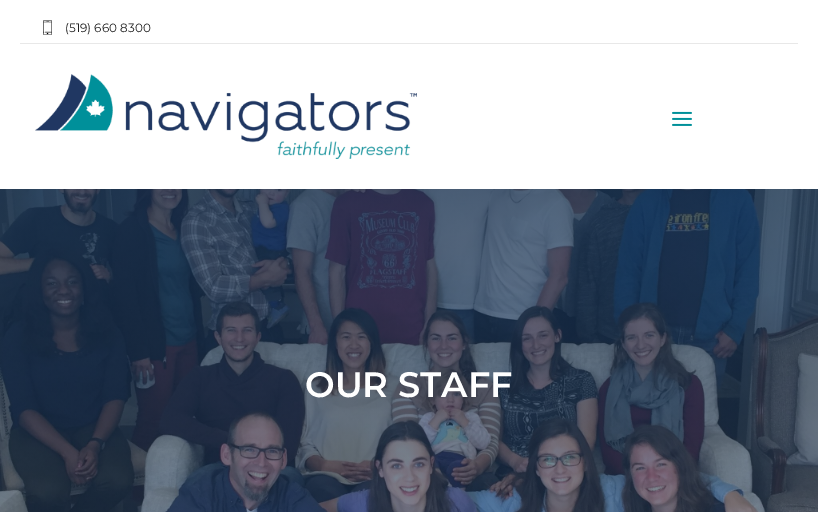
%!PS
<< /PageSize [818 512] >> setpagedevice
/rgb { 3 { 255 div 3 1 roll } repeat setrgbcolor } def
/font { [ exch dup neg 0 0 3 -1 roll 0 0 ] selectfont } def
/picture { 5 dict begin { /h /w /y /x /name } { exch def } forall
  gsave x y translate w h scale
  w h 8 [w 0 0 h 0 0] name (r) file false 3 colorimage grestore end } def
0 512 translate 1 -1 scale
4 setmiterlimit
255 255 255 rgb
0 0 818 512 rectfill
232 232 232 rgb
20 43 778 1 rectfill
(img/1.rgb) 43 20 9 15 picture
(img/2.rgb) 35 74 382 85 picture
(img/3.rgb) 672 111 20 15 picture
(img/4.rgb) 0 189 818 323 picture
/Montserrat-Thin 12 font
31 31 31 rgb
65 32 moveto (\(519\) 660 8300) show
/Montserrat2-Thin 35.25 font
255 255 255 rgb
305 397 moveto (OUR STAFF) show
showpage
